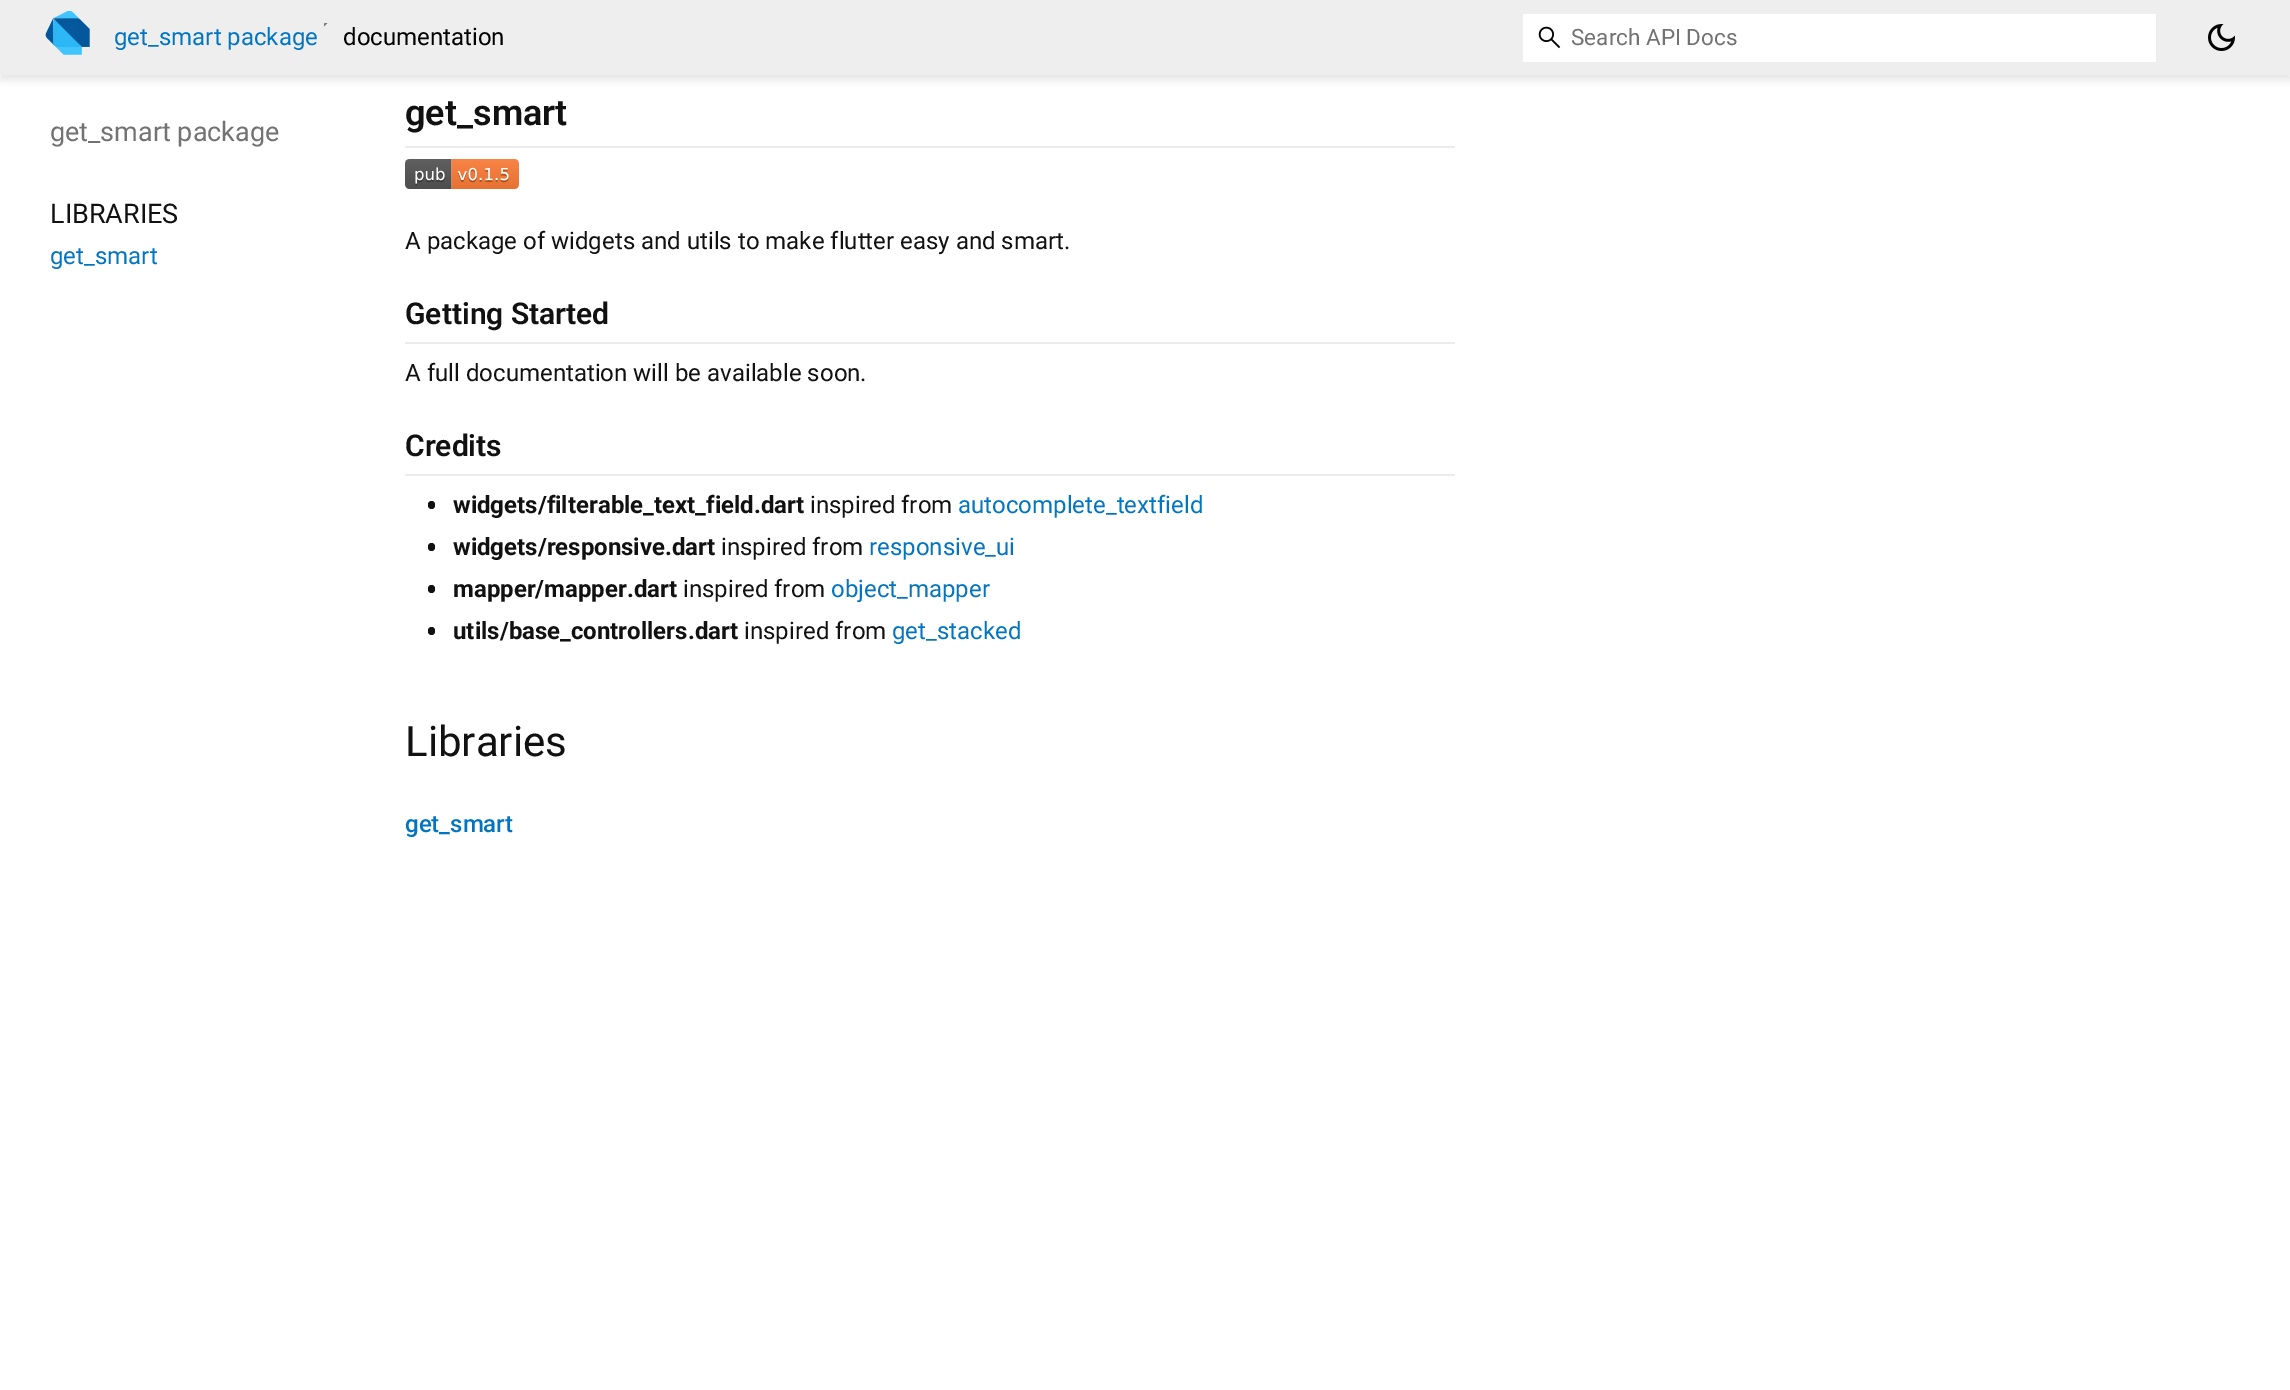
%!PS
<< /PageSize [2290 1390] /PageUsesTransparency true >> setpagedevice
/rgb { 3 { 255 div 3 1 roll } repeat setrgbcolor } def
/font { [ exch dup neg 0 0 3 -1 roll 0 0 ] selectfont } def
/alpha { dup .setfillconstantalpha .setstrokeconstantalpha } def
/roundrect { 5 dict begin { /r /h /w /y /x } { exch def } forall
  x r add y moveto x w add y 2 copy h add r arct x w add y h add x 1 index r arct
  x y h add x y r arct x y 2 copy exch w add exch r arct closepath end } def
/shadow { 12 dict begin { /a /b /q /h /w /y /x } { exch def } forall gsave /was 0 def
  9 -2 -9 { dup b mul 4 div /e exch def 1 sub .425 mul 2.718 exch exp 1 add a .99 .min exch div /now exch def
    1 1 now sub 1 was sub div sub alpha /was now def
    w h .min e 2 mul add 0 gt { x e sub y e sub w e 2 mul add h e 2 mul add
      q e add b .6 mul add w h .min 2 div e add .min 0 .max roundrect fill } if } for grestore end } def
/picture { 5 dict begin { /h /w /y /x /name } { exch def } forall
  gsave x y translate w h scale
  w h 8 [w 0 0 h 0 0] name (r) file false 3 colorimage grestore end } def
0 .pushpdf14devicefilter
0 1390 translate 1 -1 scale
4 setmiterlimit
255 255 255 rgb
0 0 2290 1390 rectfill
0 0 0 rgb
0 5 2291 75 0 4 0.1 shadow
238 238 238 rgb
0 0 2290 75 rectfill
(img/1.rgb) 45 11 45 44 picture
(img/2.rgb) 324 23 4 4 picture
255 255 255 rgb
1523 14 633 48 rectfill
(img/3.rgb) 1538 26 23 23 picture
(img/4.rgb) 2208 24 27 27 picture
234 236 239 rgb
405 146 1050 2 rectfill
(img/5.rgb) 405 159 114 30 picture
405 342 1050 2 rectfill
405 474 1050 2 rectfill
17 17 17 rgb
428 501 7 8 3.5 roundrect fill
428 543 7 8 3.5 roundrect fill
428 585 7 8 3.5 roundrect fill
428 627 7 8 3.5 roundrect fill
/Roboto-Regular 24 font
1 117 194 rgb
114 45 moveto (get_smart package) show
0 0 0 rgb
343 45 moveto (documentation) show
/Roboto-Regular 22.5 font
114 114 114 rgb
1571 45 moveto (Search API Docs) show
/Roboto-Regular 27 font
50 141 moveto (get_smart package) show
17 17 17 rgb
50 223 moveto (LIBRARIES) show
/Roboto-Regular 24 font
1 117 194 rgb
50 264 moveto (get_smart) show
/Roboto-SemiBold 36 font
17 17 17 rgb
405 125 moveto (get_smart) show
/Roboto-Regular 24 font
405 249 moveto (A package of widgets and utils to make flutter easy and smart.) show
/Roboto-SemiBold 30 font
405 324 moveto (Getting Started) show
/Roboto-Regular 24 font
405 381 moveto (A full documentation will be available soon.) show
/Roboto-SemiBold 30 font
405 456 moveto (Credits) show
/Roboto-Bold 24 font
453 513 moveto (widgets/filterable_text_field.dart) show
/Roboto-Regular 24 font
810 513 moveto (inspired from) show
1 117 194 rgb
958 513 moveto (autocomplete_textfield) show
/Roboto-Bold 24 font
17 17 17 rgb
453 555 moveto (widgets/responsive.dart) show
/Roboto-Regular 24 font
721 555 moveto (inspired from) show
1 117 194 rgb
869 555 moveto (responsive_ui) show
/Roboto-Bold 24 font
17 17 17 rgb
453 597 moveto (mapper/mapper.dart) show
/Roboto-Regular 24 font
683 597 moveto (inspired from) show
1 117 194 rgb
831 597 moveto (object_mapper) show
/Roboto-Bold 24 font
17 17 17 rgb
453 639 moveto (utils/base_controllers.dart) show
/Roboto-Regular 24 font
744 639 moveto (inspired from) show
1 117 194 rgb
892 639 moveto (get_stacked) show
/Roboto-Regular 42 font
17 17 17 rgb
405 756 moveto (Libraries) show
/Roboto-Medium 24 font
1 117 194 rgb
405 832 moveto (get_smart) show
.poppdf14devicefilter showpage
